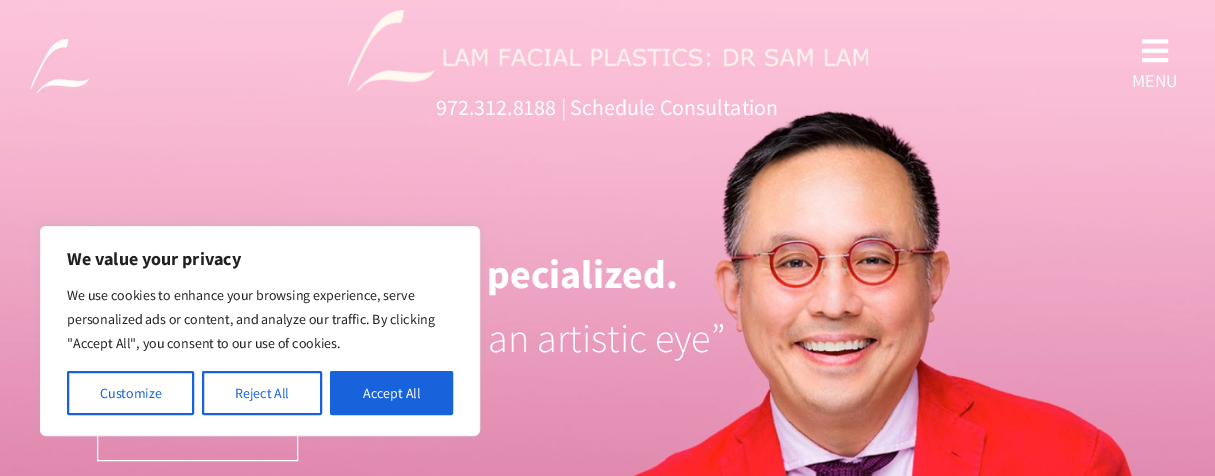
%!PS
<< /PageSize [1215 476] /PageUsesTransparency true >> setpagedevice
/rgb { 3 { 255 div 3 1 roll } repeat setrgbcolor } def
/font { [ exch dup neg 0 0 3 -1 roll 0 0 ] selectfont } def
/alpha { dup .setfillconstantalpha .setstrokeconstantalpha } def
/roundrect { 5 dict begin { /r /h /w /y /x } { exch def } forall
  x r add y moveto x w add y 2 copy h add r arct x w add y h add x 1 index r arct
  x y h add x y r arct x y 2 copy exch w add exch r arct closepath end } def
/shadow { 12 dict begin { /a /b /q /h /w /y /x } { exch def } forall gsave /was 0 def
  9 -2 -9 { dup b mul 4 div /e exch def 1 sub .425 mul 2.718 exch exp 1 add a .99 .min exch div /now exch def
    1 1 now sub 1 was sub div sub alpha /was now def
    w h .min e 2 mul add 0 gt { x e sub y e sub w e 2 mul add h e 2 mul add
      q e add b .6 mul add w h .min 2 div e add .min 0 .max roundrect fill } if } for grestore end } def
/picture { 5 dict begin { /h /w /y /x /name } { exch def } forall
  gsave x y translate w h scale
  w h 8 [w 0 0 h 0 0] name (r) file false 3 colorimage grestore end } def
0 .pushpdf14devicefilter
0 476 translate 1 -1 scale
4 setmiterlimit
255 255 255 rgb
0 0 1215 476 rectfill
(img/4.rgb) 0 0 1215 476 picture
97.5 395.5 200 65 rectstroke
172 171 171 rgb
40 225 440 210 6 5 0.3 shadow
255 255 255 rgb
40.5 226.5 439 209 5.5 roundrect gsave fill grestore
244 244 244 rgb
stroke
24 99 220 rgb
2 setlinewidth
68 372 125 42 1 roundrect stroke
203 372 118 42 1 roundrect stroke
331 372 121 42 1 roundrect gsave fill grestore
stroke
(img/1.rgb) 30 39 60 54 picture
(img/2.rgb) 1142 39 27 24 picture
(img/3.rgb) 348 10 520 81 picture
/SourceSansPro-Bold 18 font
33 33 33 rgb
67 265 moveto (We value your privacy) show
/SourceSansPro-Regular 14 font
[
  [(We use cookies to enhance your browsing experience, serve) 67 300]
  [(personalized ads or content, and analyze our traffic. By clicking) 67 324]
  [("Accept All", you consent to our use of cookies.) 67 348]
] { aload pop moveto show } forall
24 99 220 rgb
100 398 moveto (Customize) show
235 398 moveto (Reject All) show
255 255 255 rgb
363 398 moveto (Accept All) show
/SourceSansPro-Regular 18 font
1132 87 moveto (MENU) show
/SourceSansPro-Regular 22 font
436 115 moveto (972.312.8188) show
252 249 236 rgb
561 115 moveto (|) show
255 255 255 rgb
570 115 moveto (Schedule Consultation) show
/SourceSansPro-Bold 40 font
487 288 moveto (pecialized.) show
/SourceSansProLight-Light 40 font
488 352 moveto (an artistic eye”) show
.poppdf14devicefilter showpage
